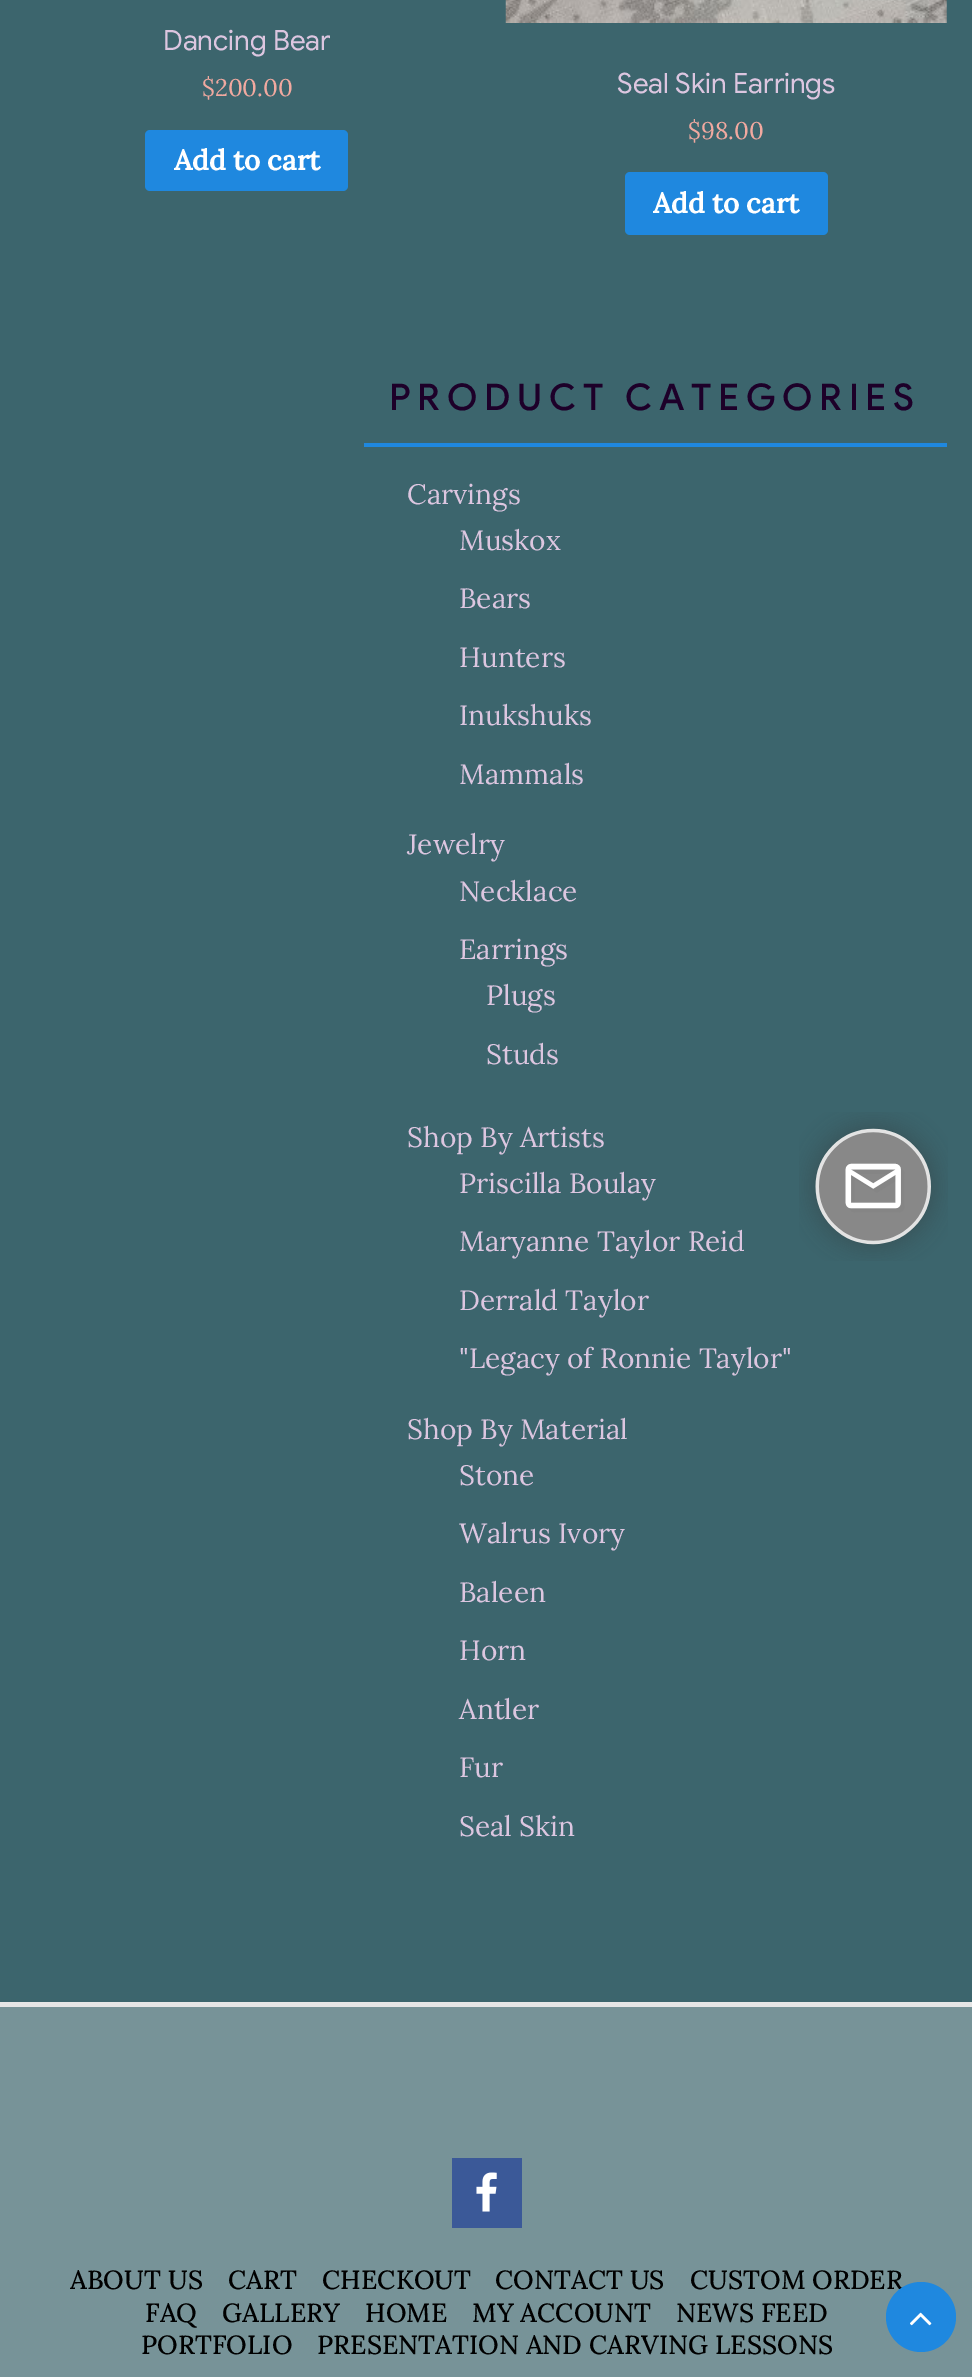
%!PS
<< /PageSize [972 2377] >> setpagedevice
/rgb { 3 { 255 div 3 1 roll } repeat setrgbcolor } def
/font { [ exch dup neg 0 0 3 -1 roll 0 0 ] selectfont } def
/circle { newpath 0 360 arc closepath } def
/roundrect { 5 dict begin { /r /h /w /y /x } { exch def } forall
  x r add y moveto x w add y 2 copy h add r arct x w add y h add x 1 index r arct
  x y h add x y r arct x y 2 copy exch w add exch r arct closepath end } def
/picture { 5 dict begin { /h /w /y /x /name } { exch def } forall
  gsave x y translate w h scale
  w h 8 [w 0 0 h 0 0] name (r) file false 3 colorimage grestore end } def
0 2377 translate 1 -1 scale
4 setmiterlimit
60 101 109 rgb
0 0 972 2377 rectfill
31 136 223 rgb
145 130 203 61 5 roundrect fill
(img/1.rgb) 505 0 442 23 picture
625 172 203 63 5 roundrect fill
[
  [364 443 583 4 31 136 223]
  [0 2007 972 370 119 147 152]
  [0 2002 972 5 230 230 230]
  [452 2158 70 70 59 89 152]
] { aload pop rgb rectfill } forall
(img/2.rgb) 476 2172 21 40 picture
(img/4.rgb) 799 1112 149 149 picture
/GoogleSans-Regular 28 font
220 198 224 rgb
163 50 moveto (Dancing Bear) show
/Lora-Regular 24 font
241 169 160 rgb
202 96 moveto ($200.00) show
/Lora-Bold 28 font
255 255 255 rgb
174 170 moveto (Add to cart) show
/GoogleSans-Regular 28 font
220 198 224 rgb
617 93 moveto (Seal Skin Earrings) show
/Lora-Regular 24 font
241 169 160 rgb
688 139 moveto ($98.00) show
/Lora-Bold 28 font
255 255 255 rgb
653 213 moveto (Add to cart) show
/GoogleSans-Medium 36.75 font
29 0 41 rgb
389 410 moveto 6.7 0 (PRODUCT CATEGORIES) ashow
/Lora-Regular 28 font
220 198 224 rgb
[
  [(Carvings) 407 504]
  [(Muskox) 459 550]
  [(Bears) 459 608]
  [(Hunters) 459 667]
  [(Inukshuks) 459 725]
  [(Mammals) 459 784]
  [(Jewelry) 407 854]
  [(Necklace) 459 901]
  [(Earrings) 459 959]
  [(Plugs) 486 1005]
  [(Studs) 486 1064]
  [(Shop By Artists) 407 1147]
  [(Priscilla Boulay) 459 1193]
  [(Maryanne Taylor Reid) 459 1251]
  [(Derrald Taylor) 459 1310]
  [("Legacy of Ronnie Taylor") 459 1368]
  [(Shop By Material) 407 1439]
  [(Stone) 459 1485]
  [(Walrus Ivory) 459 1543]
  [(Baleen) 459 1602]
  [(Horn) 459 1660]
  [(Antler) 459 1719]
  [(Fur) 459 1777]
  [(Seal Skin) 459 1836]
] { aload pop moveto show } forall
/Lora-Medium 26.25 font
0 0 0 rgb
[
  [(ABOUT US) 70 2289]
  [(CART) 228 2289]
  [(CHECKOUT) 322 2289]
  [(CONTACT US) 495 2289]
  [(CUSTOM ORDER) 690 2289]
  [(FAQ) 145 2322]
  [(GALLERY) 222 2322]
  [(HOME) 365 2322]
  [(MY ACCOUNT) 472 2322]
  [(NEWS FEED) 676 2322]
  [(PORTFOLIO) 141 2354]
  [(PRESENTATION AND CARVING LESSONS) 317 2354]
] { aload pop moveto show } forall
31 136 223 rgb
921 2317 35 circle fill
(img/3.rgb) 910 2312 22 14 picture
showpage
